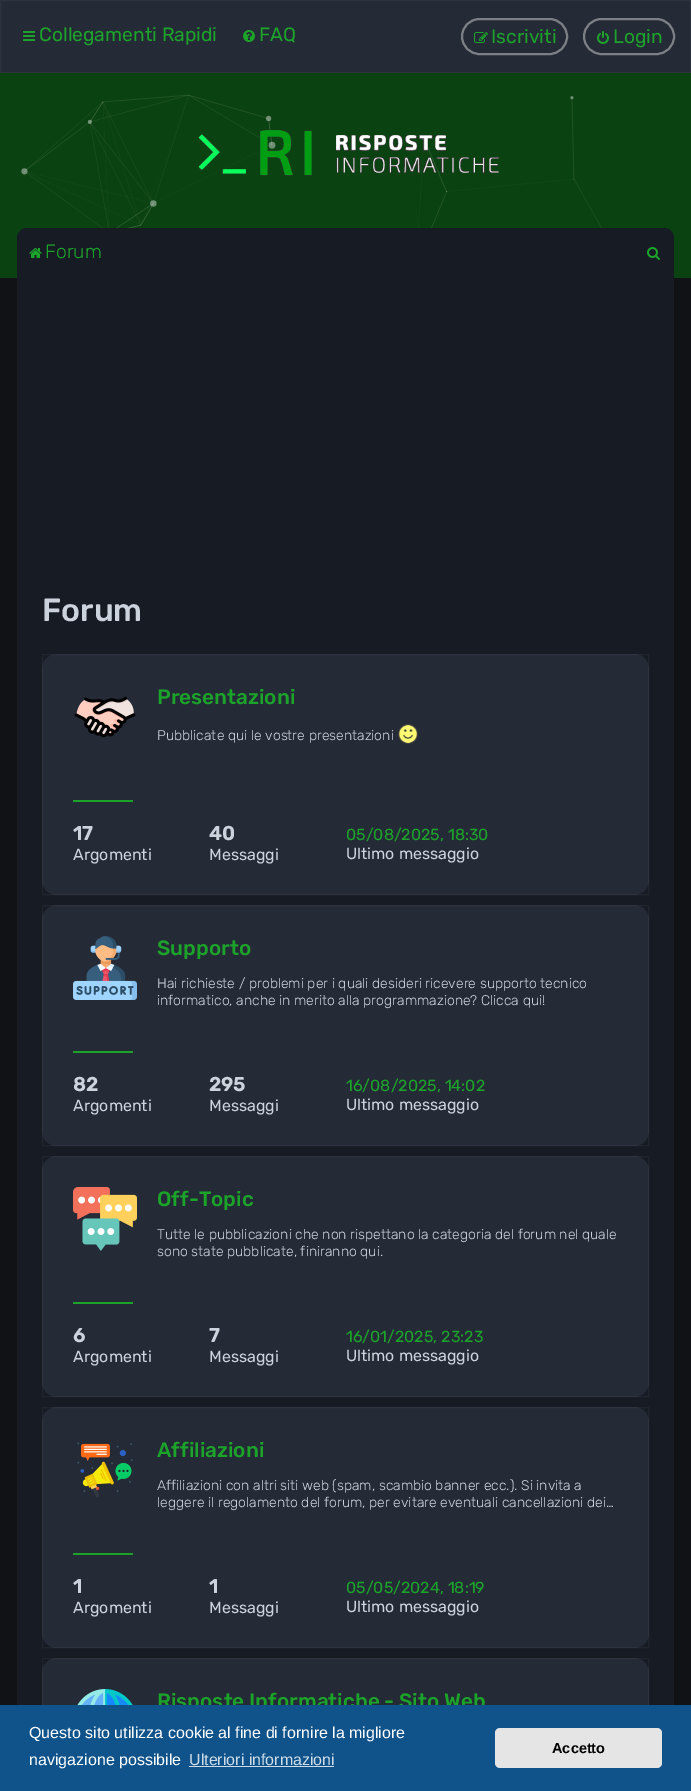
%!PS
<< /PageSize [691 1791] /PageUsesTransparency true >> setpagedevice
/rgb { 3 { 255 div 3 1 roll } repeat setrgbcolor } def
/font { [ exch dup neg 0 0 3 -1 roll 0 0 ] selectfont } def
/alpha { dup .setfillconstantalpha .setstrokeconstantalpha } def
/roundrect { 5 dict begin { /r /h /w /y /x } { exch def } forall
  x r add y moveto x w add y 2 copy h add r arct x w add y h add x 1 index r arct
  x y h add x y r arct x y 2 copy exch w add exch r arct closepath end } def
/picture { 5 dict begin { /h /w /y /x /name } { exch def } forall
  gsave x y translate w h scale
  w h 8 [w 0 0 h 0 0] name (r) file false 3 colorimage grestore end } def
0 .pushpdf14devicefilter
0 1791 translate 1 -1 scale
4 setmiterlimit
16 18 22 rgb
0 0 691 1791 rectfill
36 42 54 rgb
0.5 0.5 moveto 690.5 0.5 lineto 690.5 72.5 lineto 0.5 72.5 lineto closepath gsave fill grestore
45 51 62 rgb
stroke
(img/1.rgb) 23 31 12 10 picture
(img/2.rgb) 243 30 12 12 picture
124 127 134 rgb
2 setlinewidth
462 19 105 35 17.5 roundrect stroke
(img/3.rgb) 474 32 14 11 picture
584 19 90 35 17.5 roundrect stroke
(img/4.rgb) 597 31 12 13 picture
11 66 17 rgb
0 73 691 205 rectfill
(img/5.rgb) 21 94 581 134 picture
(img/6.rgb) 198 130 301 46 picture
23 27 36 rgb
17 228 657 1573 10 roundrect fill
(img/7.rgb) 29 248 13 10 picture
(img/8.rgb) 647 247 13 13 picture
36 42 54 rgb
42 654 607 241 15 roundrect fill
0.04 alpha
255 255 255 rgb
1 setlinewidth
42.5 654.5 606 240 rectstroke
1 alpha
(img/9.rgb) 74 696 62 42 picture
(img/10.rgb) 398 724 20 20 picture
28 164 42 rgb
73 800 60 2 1 roundrect fill
36 42 54 rgb
42 905 607 241 15 roundrect fill
0.04 alpha
255 255 255 rgb
42.5 905.5 606 240 rectstroke
1 alpha
(img/11.rgb) 73 936 64 64 picture
28 164 42 rgb
73 1051 60 2 1 roundrect fill
36 42 54 rgb
42 1156 607 241 15 roundrect fill
0.04 alpha
255 255 255 rgb
42.5 1156.5 606 240 rectstroke
1 alpha
(img/12.rgb) 73 1187 64 64 picture
28 164 42 rgb
73 1302 60 2 1 roundrect fill
36 42 54 rgb
42 1407 607 241 15 roundrect fill
0.04 alpha
255 255 255 rgb
42.5 1407.5 606 240 rectstroke
1 alpha
(img/13.rgb) 77 1442 56 56 picture
28 164 42 rgb
73 1553 60 2 1 roundrect fill
36 42 54 rgb
42 1658 607 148 15 roundrect fill
0.04 alpha
255 255 255 rgb
42.5 1658.5 606 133 rectstroke
1 alpha
(img/14.rgb) 77 1689 56 16 picture
/Rubik-Regular 19.25 font
28 164 42 rgb
[
  [(Collegamenti Rapidi) 39 41]
  [(FAQ) 259 41]
  [(Iscriviti) 491 43]
  [(Login) 613 43]
] { aload pop moveto show } forall
/Rubik-Light 19.25 font
45 258 moveto (Forum) show
/Rubik-Medium 32 font
205 211 221 rgb
42 621 moveto (Forum) show
/Rubik-Medium 20.75 font
28 164 42 rgb
157 704 moveto (Presentazioni) show
/Rubik-Light 14 font
205 211 221 rgb
157 740 moveto (Pubblicate qui le vostre presentazioni) show
/Rubik-Bold 19.25 font
73 840 moveto (17) show
/Rubik-Regular 16 font
73 860 moveto (Argomenti) show
/Rubik-Bold 19.25 font
209 840 moveto (40) show
/Rubik-Regular 16 font
209 860 moveto (Messaggi) show
28 164 42 rgb
346 840 moveto (05/08/2025, 18:30) show
205 211 221 rgb
346 859 moveto (Ultimo messaggio) show
/Rubik-Medium 20.75 font
28 164 42 rgb
157 955 moveto (Supporto) show
/Rubik-Light 14 font
205 211 221 rgb
157 988 moveto (Hai richieste / problemi per i quali desideri ricevere supporto tecnico) show
157 1005 moveto (informatico, anche in merito alla programmazione? Clicca qui!) show
/Rubik-Bold 19.25 font
73 1091 moveto (82) show
/Rubik-Regular 16 font
73 1111 moveto (Argomenti) show
/Rubik-Bold 19.25 font
209 1091 moveto (295) show
/Rubik-Regular 16 font
209 1111 moveto (Messaggi) show
28 164 42 rgb
346 1091 moveto (16/08/2025, 14:02) show
205 211 221 rgb
346 1110 moveto (Ultimo messaggio) show
/Rubik-Medium 20.75 font
28 164 42 rgb
157 1206 moveto (Off-Topic) show
/Rubik-Light 14 font
205 211 221 rgb
157 1239 moveto (Tutte le pubblicazioni che non rispettano la categoria del forum nel quale) show
157 1256 moveto (sono state pubblicate, finiranno qui.) show
/Rubik-Bold 19.25 font
73 1342 moveto (6) show
/Rubik-Regular 16 font
73 1362 moveto (Argomenti) show
/Rubik-Bold 19.25 font
209 1342 moveto (7) show
/Rubik-Regular 16 font
209 1362 moveto (Messaggi) show
28 164 42 rgb
346 1342 moveto (16/01/2025, 23:23) show
205 211 221 rgb
346 1361 moveto (Ultimo messaggio) show
/Rubik-Medium 20.75 font
28 164 42 rgb
157 1457 moveto (Affiliazioni) show
/Rubik-Light 14 font
205 211 221 rgb
157 1490 moveto (Affiliazioni con altri siti web \(spam, scambio banner ecc.\). Si invita a) show
157 1507 moveto (leggere il regolamento del forum, per evitare eventuali cancellazioni dei…) show
/Rubik-Bold 19.25 font
73 1593 moveto (1) show
/Rubik-Regular 16 font
73 1613 moveto (Argomenti) show
/Rubik-Bold 19.25 font
209 1593 moveto (1) show
/Rubik-Regular 16 font
209 1613 moveto (Messaggi) show
28 164 42 rgb
346 1593 moveto (05/05/2024, 18:19) show
205 211 221 rgb
346 1612 moveto (Ultimo messaggio) show
/Rubik-Medium 20.75 font
28 164 42 rgb
157 1708 moveto (Risposte Informatiche - Sito Web) show
15 83 138 rgb
0 1705 691 86 rectfill
/LiberationSans-Regular 16 font
255 255 255 rgb
29 1738 moveto (Questo sito utilizza cookie al fine di fornire la migliore) show
29 1765 moveto (navigazione possibile) show
207 221 232 rgb
189 1765 moveto (Ulteriori informazioni) show
189 1766 145 1 rectfill
229 229 229 rgb
495 1728 167 40 5 roundrect fill
/LiberationSans-Bold 14.5 font
0 0 0 rgb
552 1753 moveto (Accetto) show
.poppdf14devicefilter showpage
